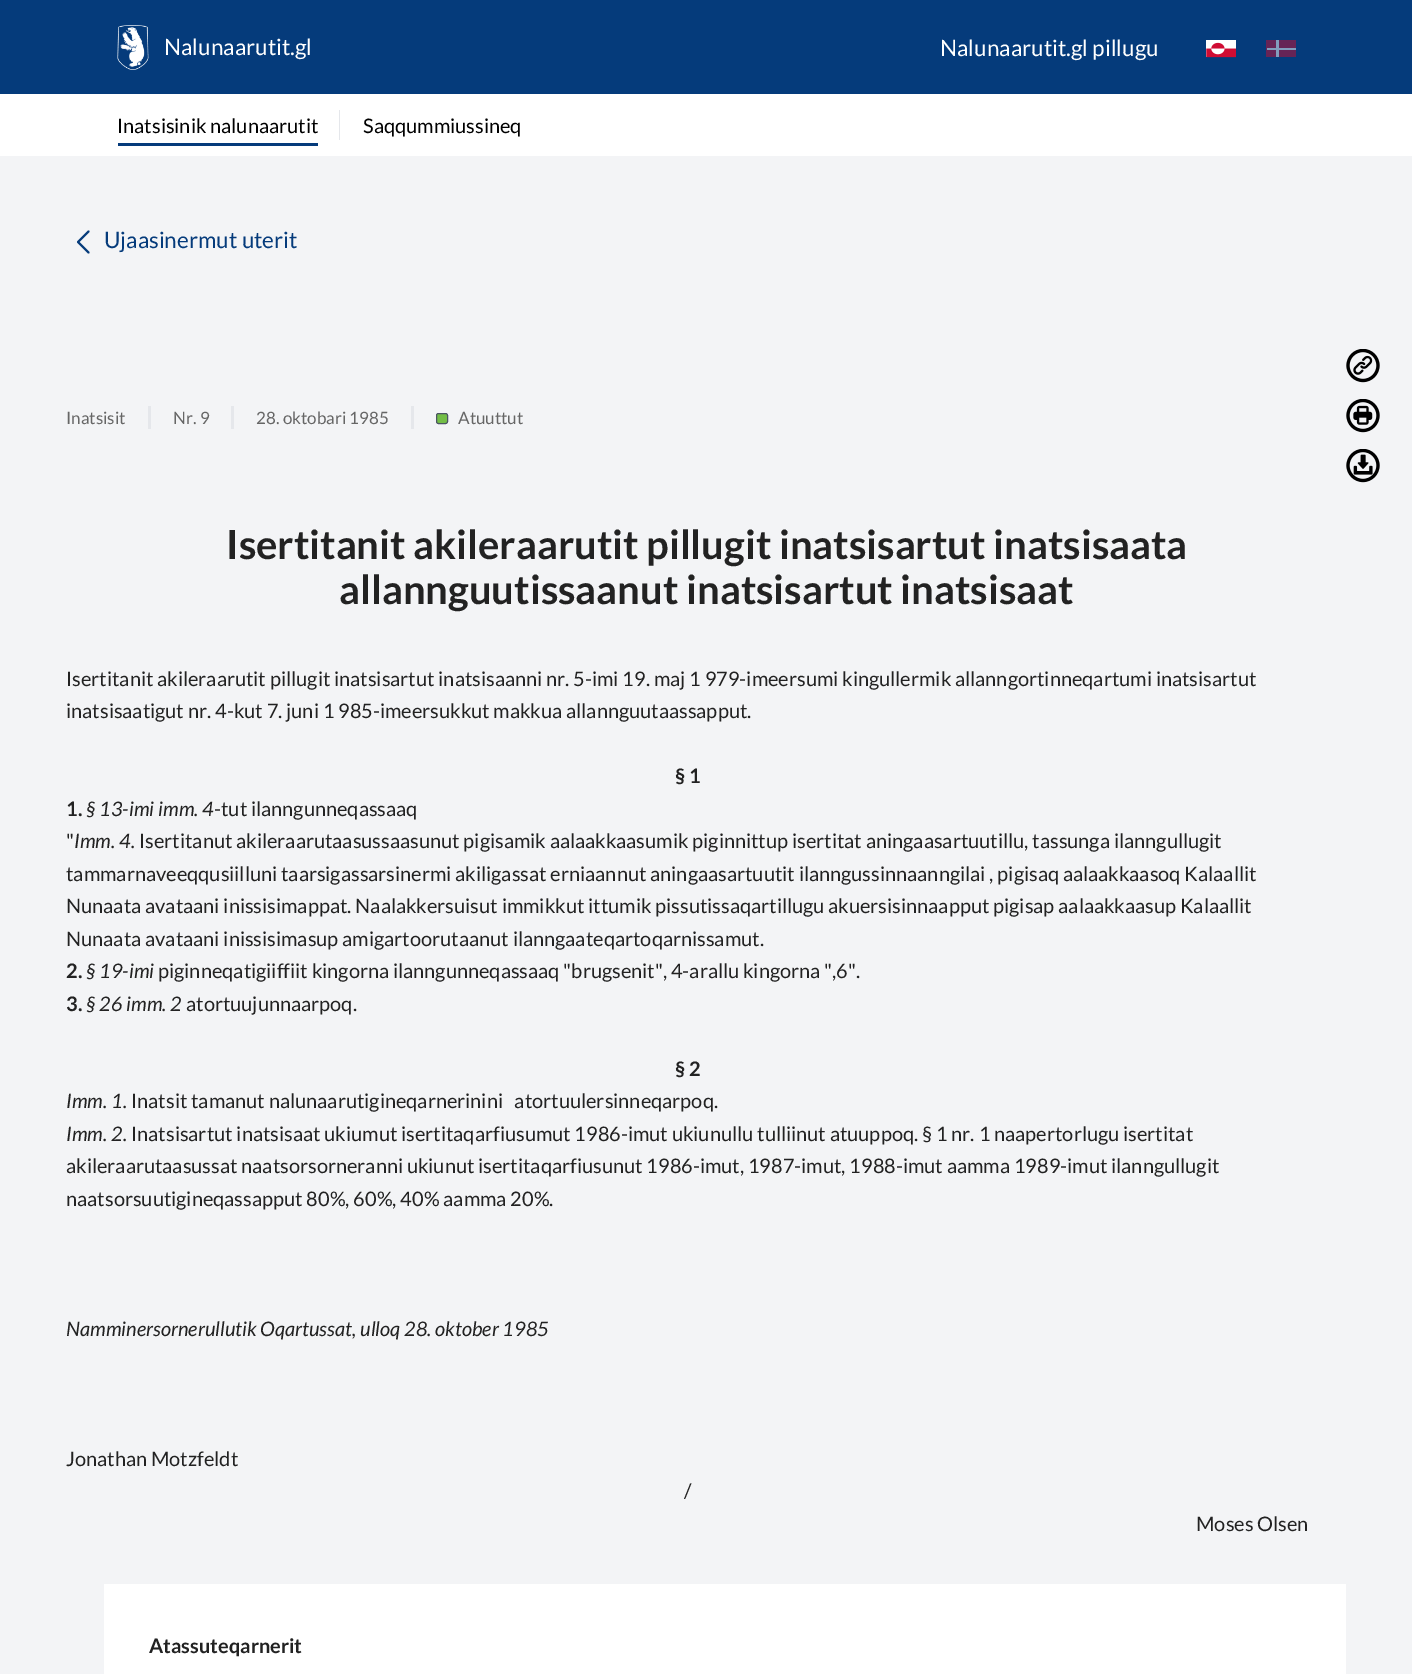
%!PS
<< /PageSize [1412 1674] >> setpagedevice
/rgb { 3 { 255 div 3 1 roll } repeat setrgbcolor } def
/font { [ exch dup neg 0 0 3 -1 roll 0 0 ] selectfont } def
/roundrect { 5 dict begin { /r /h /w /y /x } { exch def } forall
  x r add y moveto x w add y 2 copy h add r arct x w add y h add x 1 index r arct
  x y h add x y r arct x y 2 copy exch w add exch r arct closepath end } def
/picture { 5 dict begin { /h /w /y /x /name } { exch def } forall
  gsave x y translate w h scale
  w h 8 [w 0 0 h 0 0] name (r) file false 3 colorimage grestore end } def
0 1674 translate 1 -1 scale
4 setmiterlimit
5 59 123 rgb
0 0 1412 1674 rectfill
(img/1.rgb) 117 25 32 45 picture
(img/2.rgb) 1206 40 30 18 picture
[
  [1266 40 30 17 102 36 86]
  [1276 40 3 17 130 157 189]
  [1267 48 29 2 130 157 189]
  [0 94 1412 62 255 255 255]
  [118 143 200 3 5 59 123]
  [339 110 1 30 229 231 235]
  [0 156 1412 1518 243 244 246]
] { aload pop rgb rectfill } forall
5 59 123 rgb
2.1 setlinewidth
1 setlinecap
1 setlinejoin
88.5 252.5 moveto 78 242 lineto 88.5 231.5 lineto stroke
[
  [148 406 3 23 229 231 235]
  [231 406 3 23 229 231 235]
  [411 406 3 23 229 231 235]
] { aload pop rgb rectfill } forall
115 190 70 rgb
436.5 413.5 11 10 2 roundrect gsave fill grestore
75 85 99 rgb
1 setlinewidth
0 setlinecap
0 setlinejoin
stroke
(img/3.rgb) 1346 349 34 34 picture
(img/4.rgb) 1346 399 34 34 picture
(img/5.rgb) 1346 449 34 34 picture
255 255 255 rgb
104 1584 1242 90 rectfill
/Lato-Regular 22.5 font
164 55 moveto (Nalunaarutit.gl) show
940 56 moveto (Nalunaarutit.gl pillugu) show
/Lato-Regular 20 font
0 0 0 rgb
117 133 moveto (Inatsisinik nalunaarutit) show
363 133 moveto (Saqqummiussineq) show
/Lato-Regular 22.5 font
5 59 123 rgb
104 248 moveto (Ujaasinermut uterit) show
/Lato-Regular 17 font
102 102 102 rgb
[
  [(Inatsisit) 66 424]
  [(Nr. 9) 173 424]
  [(28. oktobari 1985) 256 424]
  [(Atuuttut) 458 424]
] { aload pop moveto show } forall
/Lato-Bold 40 font
34 34 34 rgb
226 559 moveto (Isertitanit akileraarutit pillugit inatsisartut inatsisaata) show
339 604 moveto (allannguutissaanut inatsisartut inatsisaat) show
/Lato-Regular 20 font
66 686 moveto (Isertitanit akileraarutit pillugit inatsisartut inatsisaanni nr. 5-imi 19. maj 1 979-imeersumi kingullermik allanngortinneqartumi inatsisartut) show
66 718 moveto (inatsisaatigut nr. 4-kut 7. juni 1 985-imeersukkut makkua allannguutaassapput.) show
/Lato-Bold 20 font
675 783 moveto (§ 1) show
66 816 moveto (1.) show
/Lato-Italic 20 font
86 816 moveto (§ 13-imi imm. 4) show
/Lato-Regular 20 font
214 816 moveto (-tut ilanngunneqassaaq) show
66 848 moveto (") show
/Lato-Italic 20 font
74 848 moveto (Imm. 4.) show
/Lato-Regular 20 font
[
  [(Isertitanut akileraarutaasussaasunut pigisamik aalaakkaasumik piginnittup isertitat aningaasartuutillu, tassunga ilanngullugit) 139 848]
  [(tammarnaveeqqusiilluni taarsigassarsinermi akiligassat erniaannut aningaasartuutit ilanngussinnaanngilai , pigisaq aalaakkaasoq Kalaallit) 66 881]
  [(Nunaata avataani inissisimappat. Naalakkersuisut immikkut ittumik pissutissaqartillugu akuersisinnaapput pigisap aalaakkaasup Kalaallit) 66 913]
  [(Nunaata avataani inissisimasup amigartoorutaanut ilanngaateqartoqarnissamut.) 66 946]
] { aload pop moveto show } forall
/Lato-Bold 20 font
66 978 moveto (2.) show
/Lato-Italic 20 font
86 978 moveto (§ 19-imi) show
/Lato-Regular 20 font
158 978 moveto (piginneqatigiiffiit kingorna ilanngunneqassaaq "brugsenit", 4-arallu kingorna ",6".) show
/Lato-Bold 20 font
66 1011 moveto (3.) show
/Lato-Italic 20 font
86 1011 moveto (§ 26 imm. 2) show
/Lato-Regular 20 font
186 1011 moveto (atortuujunnaarpoq.) show
/Lato-Bold 20 font
675 1076 moveto (§ 2) show
/Lato-Italic 20 font
66 1108 moveto (Imm. 1.) show
/Lato-Regular 20 font
131 1108 moveto (Inatsit tamanut nalunaarutigineqarnerinini   atortuulersinneqarpoq.) show
/Lato-Italic 20 font
66 1141 moveto (Imm. 2.) show
/Lato-Regular 20 font
[
  [(Inatsisartut inatsisaat ukiumut isertitaqarfiusumut 1986-imut ukiunullu tulliinut atuuppoq. § 1 nr. 1 naapertorlugu isertitat) 131 1141]
  [(akileraarutaasussat naatsorsorneranni ukiunut isertitaqarfiusunut 1986-imut, 1987-imut, 1988-imut aamma 1989-imut ilanngullugit) 66 1173]
  [(naatsorsuutigineqassapput 80%, 60%, 40% aamma 20%.) 66 1206]
] { aload pop moveto show } forall
/Lato-Italic 20 font
66 1336 moveto (Namminersornerullutik Oqartussat, ulloq 28. oktober 1985) show
/Lato-Regular 20 font
[
  [(Jonathan Motzfeldt) 66 1466]
  [(/) 684 1498]
  [(Moses Olsen) 1196 1531]
] { aload pop moveto show } forall
/Lato-Bold 20 font
149 1653 moveto (Atassuteqarnerit) show
showpage
